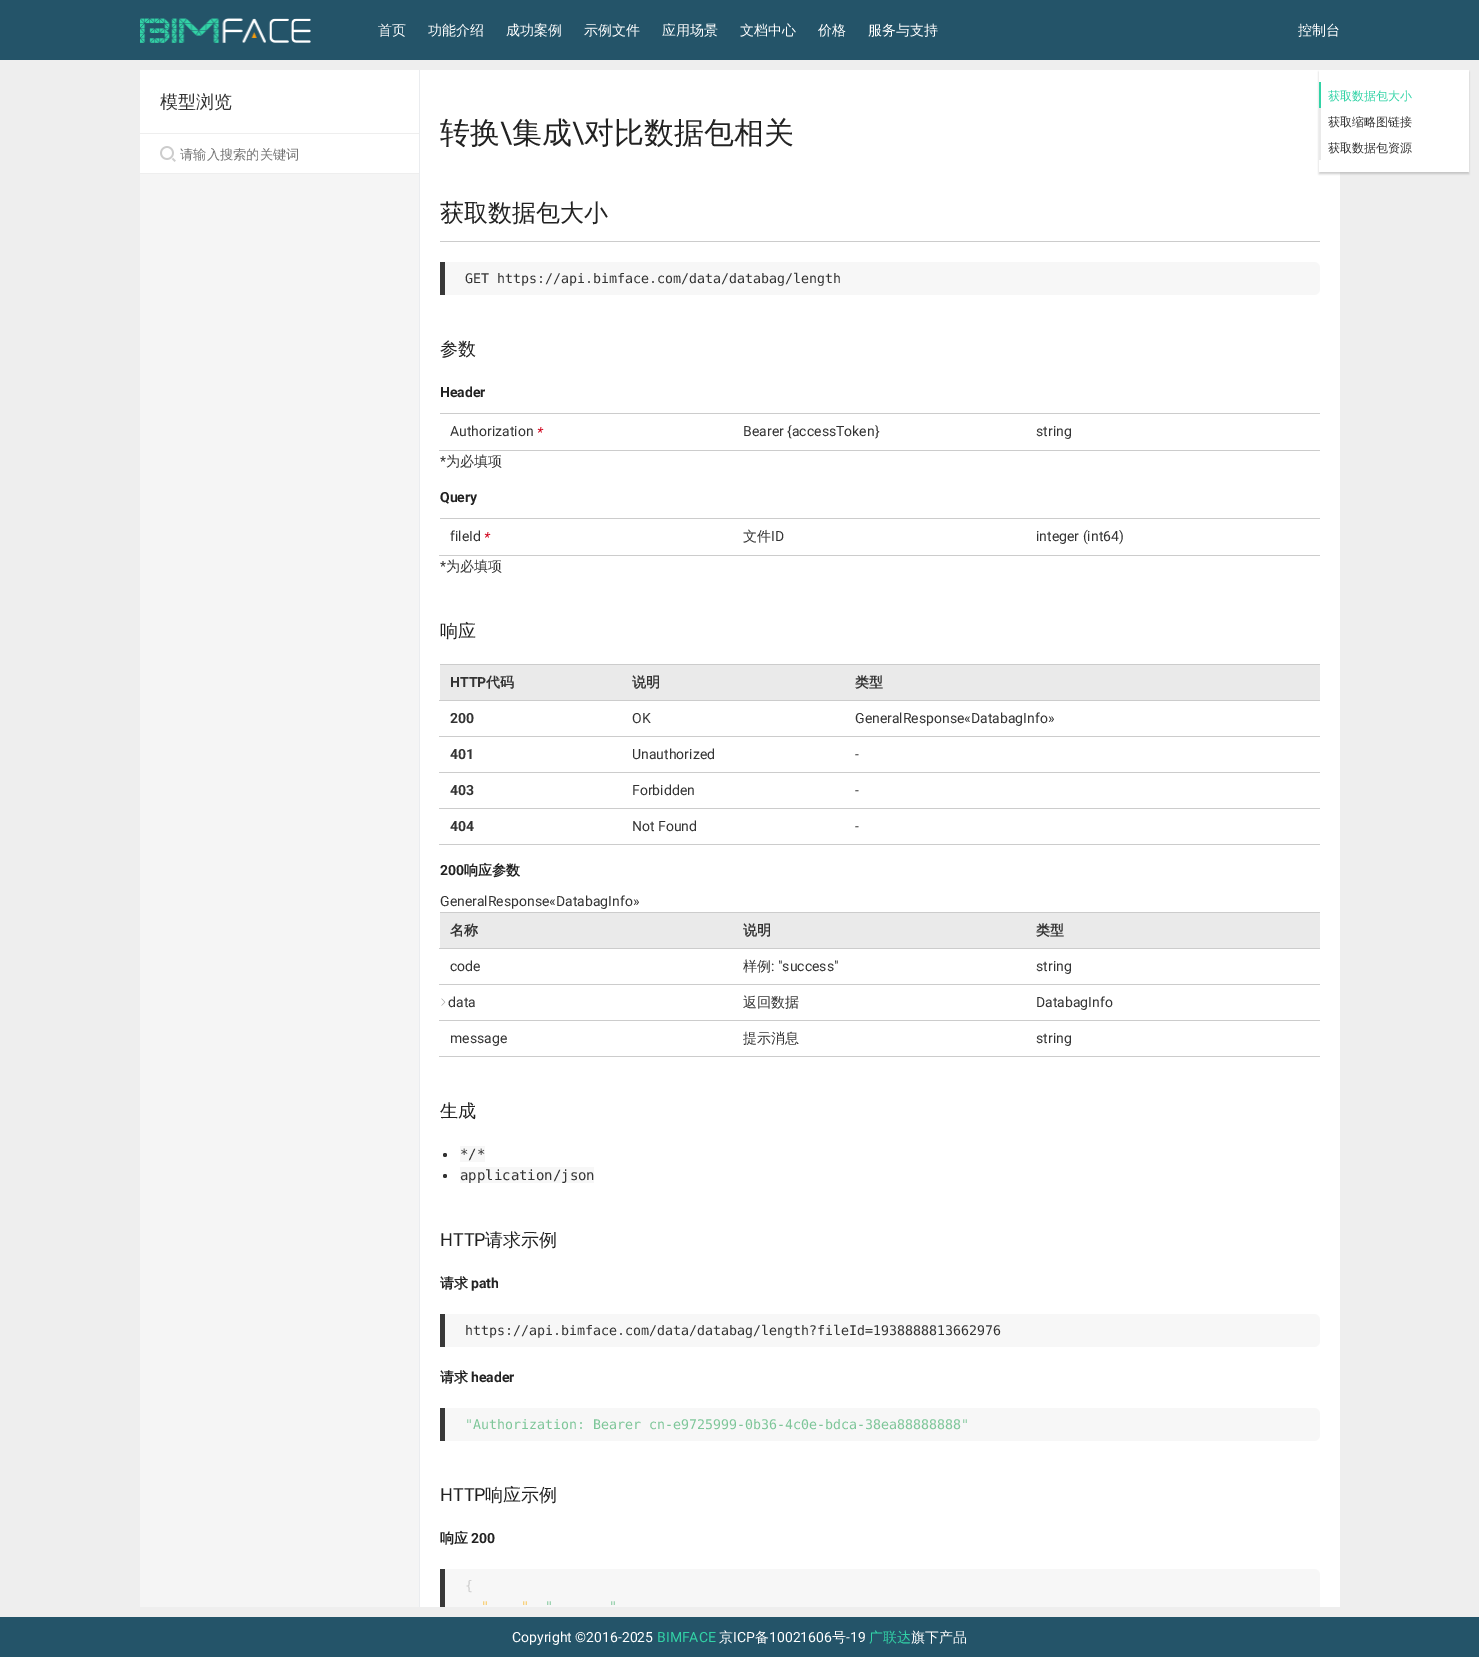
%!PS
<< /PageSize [1479 1657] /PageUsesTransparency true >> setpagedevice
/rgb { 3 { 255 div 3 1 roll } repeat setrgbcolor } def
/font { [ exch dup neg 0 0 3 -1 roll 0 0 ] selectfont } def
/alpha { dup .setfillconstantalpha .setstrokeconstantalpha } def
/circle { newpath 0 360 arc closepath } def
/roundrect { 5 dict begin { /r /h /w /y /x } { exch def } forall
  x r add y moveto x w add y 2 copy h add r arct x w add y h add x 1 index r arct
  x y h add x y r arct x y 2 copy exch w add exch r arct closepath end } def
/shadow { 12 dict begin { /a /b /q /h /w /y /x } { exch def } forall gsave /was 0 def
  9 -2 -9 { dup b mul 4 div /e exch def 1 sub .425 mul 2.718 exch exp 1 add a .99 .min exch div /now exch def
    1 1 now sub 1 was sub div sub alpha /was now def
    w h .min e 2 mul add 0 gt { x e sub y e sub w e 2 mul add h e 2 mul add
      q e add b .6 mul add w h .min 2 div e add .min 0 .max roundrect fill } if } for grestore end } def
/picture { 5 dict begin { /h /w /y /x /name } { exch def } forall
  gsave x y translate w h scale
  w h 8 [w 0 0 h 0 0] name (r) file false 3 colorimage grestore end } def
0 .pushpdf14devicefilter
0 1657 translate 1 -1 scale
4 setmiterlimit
238 238 238 rgb
0 0 1479 1657 rectfill
36 84 105 rgb
0 0 1479 60 rectfill
(img/1.rgb) 140 18 171 25 picture
[
  [140 174 279 1433 245 245 245]
  [419 70 1 1537 234 236 239]
  [140 70 279 63 255 255 255]
  [140 134 279 39 255 255 255]
] { aload pop rgb rectfill } forall
(img/2.rgb) 160 146 16 16 picture
420 70 920 1537 rectfill
204 204 204 rgb
440 241 880 1 rectfill
247 247 247 rgb
440 262 880 33 6 roundrect fill
[
  [440 262 5 33 56 56 56]
  [440 413 880 1 204 204 204]
  [439 450 881 1 204 204 204]
  [440 518 880 1 204 204 204]
  [439 555 881 1 204 204 204]
  [440 664 880 1 204 204 204]
  [440 665 880 35 234 234 234]
  [439 700 881 1 204 204 204]
  [439 736 881 1 204 204 204]
  [439 772 881 1 204 204 204]
  [439 808 881 1 204 204 204]
  [439 844 881 1 204 204 204]
  [440 912 880 1 204 204 204]
  [440 913 880 35 234 234 234]
  [439 948 881 1 204 204 204]
  [439 984 881 1 204 204 204]
] { aload pop rgb rectfill } forall
(img/3.rgb) 441 998 5 8 picture
439 1020 881 1 rectfill
439 1056 881 1 rectfill
51 51 51 rgb
445 1155 2 circle fill
247 247 247 rgb
460 1146 25 16 rectfill
51 51 51 rgb
445 1176 2 circle fill
247 247 247 rgb
460 1167 134 16 rectfill
440 1314 880 33 6 roundrect fill
56 56 56 rgb
440 1314 5 33 rectfill
247 247 247 rgb
440 1408 880 33 6 roundrect fill
56 56 56 rgb
440 1408 5 33 rectfill
247 247 247 rgb
446 1569 moveto 1314 1569 lineto 1317.5 1569 1320 1571.5 1320 1575 curveto 1320 1607 lineto 440 1607 lineto 440 1575 lineto 440 1571.5 442.5 1569 446 1569 curveto closepath fill
56 56 56 rgb
440 1569 5 38 rectfill
153 153 153 rgb
1319 72 150 102 0 1 0.5 shadow
[
  [1319 70 150 102 255 255 255]
  [1319 82 2 26 50 211 166]
  [1319 108 2 52 234 234 234]
  [0 1617 1479 40 36 84 105]
] { aload pop rgb rectfill } forall
/WenQuanYiZenHei-Medium 14 font
255 255 255 rgb
[
  [(首页) 378 35]
  [(功能介绍) 428 35]
  [(成功案例) 506 35]
  [(示例文件) 584 35]
  [(应用场景) 662 35]
  [(文档中心) 740 35]
  [(价格) 818 35]
  [(服务与支持) 868 35]
  [(控制台) 1298 35]
] { aload pop moveto show } forall
/WenQuanYiZenHei-Medium 18 font
51 51 51 rgb
160 108 moveto (模型浏览) show
/WenQuanYiZenHei-Medium 13.25 font
117 117 117 rgb
180 159 moveto (请输入搜索的关键词) show
/WenQuanYiZenHei-Medium 30 font
34 34 34 rgb
440 143 moveto (转换) show
/Roboto-Regular 30 font
500 143 moveto (\\) show
/WenQuanYiZenHei-Medium 30 font
512 143 moveto (集成) show
/Roboto-Regular 30 font
572 143 moveto (\\) show
/WenQuanYiZenHei-Medium 30 font
584 143 moveto (对比数据包相关) show
/WenQuanYiZenHei-Medium 24 font
440 221 moveto (获取数据包大小) show
/DejaVuSansMono-Regular 13.3 font
51 51 51 rgb
465 283 moveto (GET https://api.bimface.com/data/databag/length) show
/WenQuanYiZenHei-Medium 18 font
34 34 34 rgb
440 355 moveto (参数) show
/Roboto-Bold 14 font
440 397 moveto (Header) show
/Roboto-Regular 14 font
51 51 51 rgb
450 436 moveto (Authorization) show
/Roboto-Italic 14 font
208 2 27 rgb
537 437 moveto (*) show
/Roboto-Regular 14 font
51 51 51 rgb
[
  [(Bearer {accessToken}) 743 436]
  [(string) 1036 436]
  [(*) 440 466]
] { aload pop moveto show } forall
/WenQuanYiZenHei-Medium 14 font
446 466 moveto (为必填项) show
/Roboto-Bold 14 font
34 34 34 rgb
440 502 moveto (Query) show
/Roboto-Regular 14 font
51 51 51 rgb
450 541 moveto (fileId) show
/Roboto-Italic 14 font
208 2 27 rgb
484 542 moveto (*) show
/WenQuanYiZenHei-Medium 14 font
51 51 51 rgb
743 541 moveto (文件) show
/Roboto-Regular 14 font
[
  [(ID) 771 541]
  [(integer \(int64\)) 1036 541]
  [(*) 440 571]
] { aload pop moveto show } forall
/WenQuanYiZenHei-Medium 14 font
446 571 moveto (为必填项) show
/WenQuanYiZenHei-Medium 18 font
34 34 34 rgb
440 637 moveto (响应) show
/Roboto-Bold 14 font
51 51 51 rgb
450 687 moveto (HTTP) show
/WenQuanYiZenHei-Bold 14 font
[
  [(代码) 486 687]
  [(说明) 632 687]
  [(类型) 855 687]
] { aload pop moveto show } forall
/Roboto-Bold 14 font
450 723 moveto (200) show
/Roboto-Regular 14 font
632 723 moveto (OK) show
855 723 moveto (GeneralResponse«DatabagInfo») show
/Roboto-Bold 14 font
450 759 moveto (401) show
/Roboto-Regular 14 font
632 759 moveto (Unauthorized) show
855 759 moveto (-) show
/Roboto-Bold 14 font
450 795 moveto (403) show
/Roboto-Regular 14 font
632 795 moveto (Forbidden) show
855 795 moveto (-) show
/Roboto-Bold 14 font
450 831 moveto (404) show
/Roboto-Regular 14 font
632 831 moveto (Not Found) show
855 831 moveto (-) show
/Roboto-Bold 14 font
34 34 34 rgb
440 875 moveto (200) show
/WenQuanYiZenHei-Bold 14 font
464 875 moveto (响应参数) show
/Roboto-Regular 14 font
51 51 51 rgb
440 906 moveto (GeneralResponse«DatabagInfo») show
/WenQuanYiZenHei-Bold 14 font
[
  [(名称) 450 935]
  [(说明) 743 935]
  [(类型) 1036 935]
] { aload pop moveto show } forall
/Roboto-Regular 14 font
450 971 moveto (code) show
/WenQuanYiZenHei-Medium 14 font
743 971 moveto (样例) show
/Roboto-Regular 14 font
[
  [(: "success") 771 971]
  [(string) 1036 971]
  [(data) 448 1007]
] { aload pop moveto show } forall
/WenQuanYiZenHei-Medium 14 font
743 1007 moveto (返回数据) show
/Roboto-Regular 14 font
1036 1007 moveto (DatabagInfo) show
450 1043 moveto (message) show
/WenQuanYiZenHei-Medium 14 font
743 1043 moveto (提示消息) show
/Roboto-Regular 14 font
1036 1043 moveto (string) show
/WenQuanYiZenHei-Medium 18 font
34 34 34 rgb
440 1117 moveto (生成) show
/DejaVuSansMono-Regular 14 font
51 51 51 rgb
460 1159 moveto (*/*) show
460 1180 moveto (application/json) show
/Roboto-Regular 18 font
34 34 34 rgb
440 1246 moveto (HTTP) show
/WenQuanYiZenHei-Medium 18 font
485 1246 moveto (请求示例) show
/WenQuanYiZenHei-Bold 14 font
440 1288 moveto (请求) show
/Roboto-Bold 14 font
471 1288 moveto (path) show
/DejaVuSansMono-Regular 13.3 font
51 51 51 rgb
465 1335 moveto (https://api.bimface.com/data/databag/length?fileId=1938888813662976) show
/WenQuanYiZenHei-Bold 14 font
34 34 34 rgb
440 1382 moveto (请求) show
/Roboto-Bold 14 font
471 1382 moveto (header) show
/DejaVuSansMono-Regular 13.3 font
126 198 153 rgb
465 1429 moveto ("Authorization: Bearer cn-e9725999-0b36-4c0e-bdca-38ea88888888") show
/Roboto-Regular 18 font
34 34 34 rgb
440 1501 moveto (HTTP) show
/WenQuanYiZenHei-Medium 18 font
485 1501 moveto (响应示例) show
/WenQuanYiZenHei-Bold 14 font
440 1543 moveto (响应) show
/Roboto-Bold 14 font
471 1543 moveto (200) show
/DejaVuSansMono-Regular 13.3 font
204 204 204 rgb
465 1590 moveto ({) show
248 197 85 rgb
481 1611 moveto (") show
521 1611 moveto (") show
126 198 153 rgb
545 1611 moveto (") show
609 1611 moveto (") show
/WenQuanYiZenHei-Medium 12 font
50 211 166 rgb
1328 100 moveto (获取数据包大小) show
51 51 51 rgb
1328 126 moveto (获取缩略图链接) show
1328 152 moveto (获取数据包资源) show
/Roboto-Regular 14 font
255 255 255 rgb
512 1642 moveto (Copyright ©2016-2025) show
50 211 166 rgb
657 1642 moveto (BIMFACE) show
/WenQuanYiZenHei-Medium 14 font
255 255 255 rgb
719 1642 moveto (京) show
/Roboto-Regular 14 font
733 1642 moveto (ICP) show
/WenQuanYiZenHei-Medium 14 font
755 1642 moveto (备) show
/Roboto-Regular 14 font
769 1642 moveto (10021606) show
/WenQuanYiZenHei-Medium 14 font
832 1642 moveto (号) show
/Roboto-Regular 14 font
846 1642 moveto (-19) show
/WenQuanYiZenHei-Medium 14 font
50 211 166 rgb
869 1642 moveto (广联达) show
255 255 255 rgb
911 1642 moveto (旗下产品) show
.poppdf14devicefilter showpage
